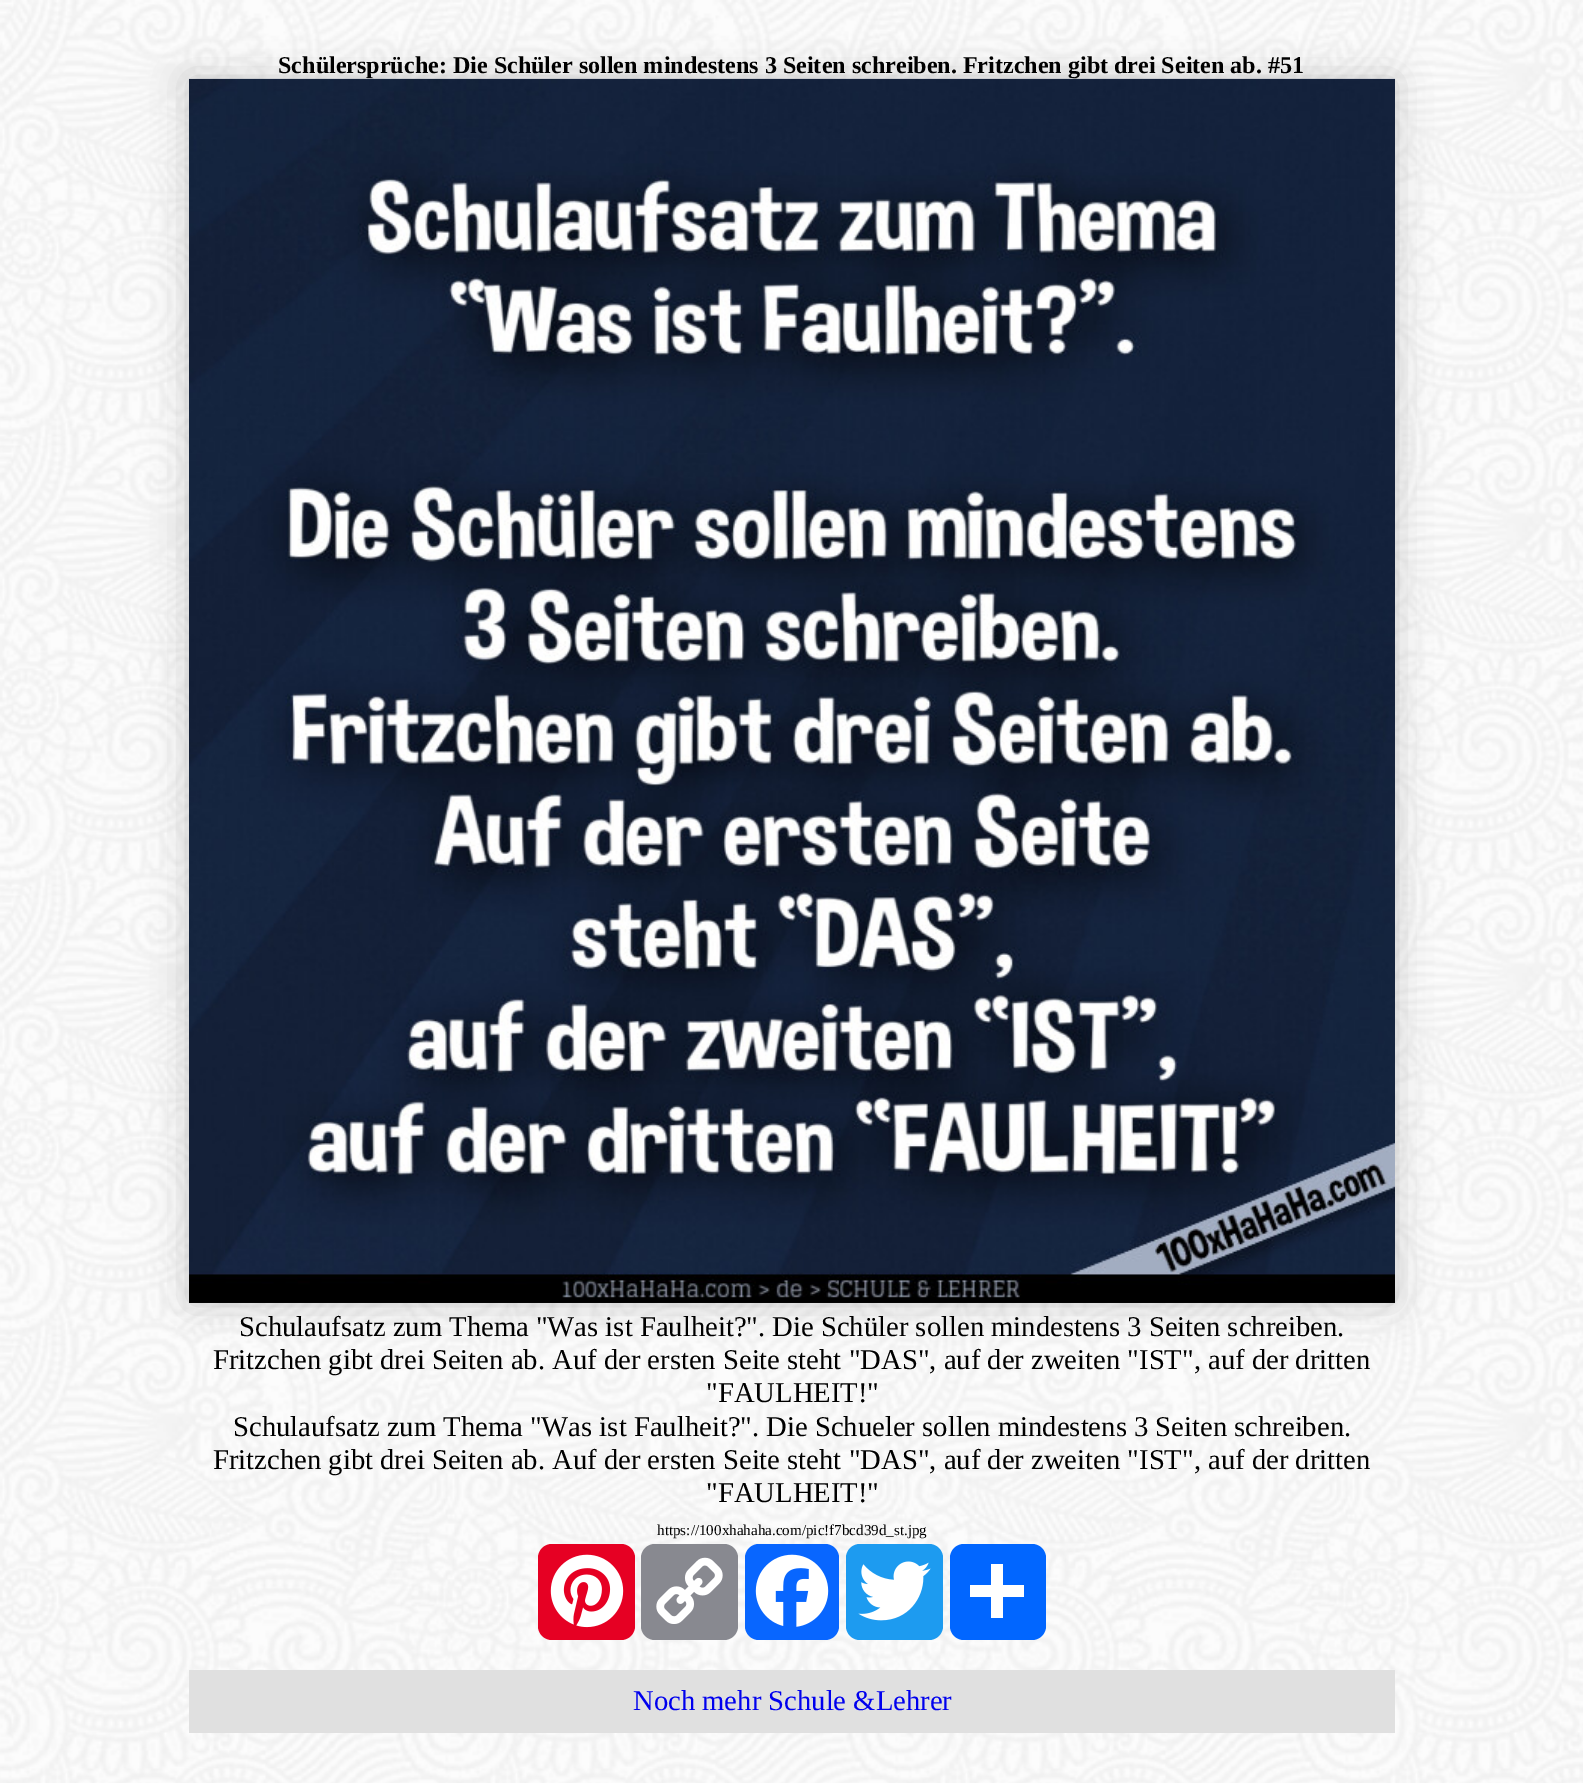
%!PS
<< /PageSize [1583 1783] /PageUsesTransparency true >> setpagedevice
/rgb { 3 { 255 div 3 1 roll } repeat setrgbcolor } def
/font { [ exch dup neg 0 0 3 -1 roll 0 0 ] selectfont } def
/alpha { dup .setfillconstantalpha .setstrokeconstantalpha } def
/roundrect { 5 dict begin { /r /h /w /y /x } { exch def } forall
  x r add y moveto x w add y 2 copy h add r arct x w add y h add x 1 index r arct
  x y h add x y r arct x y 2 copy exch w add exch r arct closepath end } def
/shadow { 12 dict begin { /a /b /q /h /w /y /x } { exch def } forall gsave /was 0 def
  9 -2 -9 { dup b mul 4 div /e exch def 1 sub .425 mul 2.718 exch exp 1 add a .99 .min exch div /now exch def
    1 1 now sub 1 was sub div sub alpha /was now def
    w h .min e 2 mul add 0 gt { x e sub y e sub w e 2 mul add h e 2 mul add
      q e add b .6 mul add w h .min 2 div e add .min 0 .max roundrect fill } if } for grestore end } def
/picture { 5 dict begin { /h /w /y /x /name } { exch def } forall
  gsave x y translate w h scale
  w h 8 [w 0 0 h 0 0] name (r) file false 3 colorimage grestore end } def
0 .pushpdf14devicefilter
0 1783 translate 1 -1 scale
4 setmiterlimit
255 255 255 rgb
0 0 1583 1783 rectfill
(img/1.rgb) 0 0 1583 1783 picture
0 0 0 rgb
189 79 1206 1224 0 17.5 0.2 shadow
230 0 35 rgb
538 1544 97 96 14 roundrect fill
(img/3.rgb) 550 1554 74 74 picture
136 137 144 rgb
641 1544 97 96 14 roundrect fill
(img/4.rgb) 656 1557 67 67 picture
8 102 255 rgb
745 1544 94 96 14 roundrect fill
(img/5.rgb) 755 1554 74 73 picture
29 155 240 rgb
846 1544 97 96 14 roundrect fill
(img/6.rgb) 858 1561 73 60 picture
1 102 255 rgb
950 1544 96 96 14 roundrect fill
[
  [991 1564 12 54 255 255 255]
  [970 1585 54 12 255 255 255]
  [189 1670 1206 63 224 224 224]
] { aload pop rgb rectfill } forall
/LiberationSerif-Bold 24.1 font
0 0 0 rgb
278 73 moveto (Schülersprüche: Die Schüler sollen mindestens 3 Seiten schreiben. Fritzchen gibt drei Seiten ab. #51) show
(img/2.rgb) 189 78 1206 1225 picture
/LiberationSerif-Regular 28.65 font
[
  [(Schulaufsatz zum Thema "Was ist Faulheit?". Die Schüler sollen mindestens 3 Seiten schreiben.) 239 1336]
  [(Fritzchen gibt drei Seiten ab. Auf der ersten Seite steht "DAS", auf der zweiten "IST", auf der dritten) 213 1369]
  [("FAULHEIT!") 706 1402]
  [(Schulaufsatz zum Thema "Was ist Faulheit?". Die Schueler sollen mindestens 3 Seiten schreiben.) 233 1436]
  [(Fritzchen gibt drei Seiten ab. Auf der ersten Seite steht "DAS", auf der zweiten "IST", auf der dritten) 213 1469]
  [("FAULHEIT!") 706 1502]
] { aload pop moveto show } forall
/LiberationSerif-Regular 15.1 font
657 1535 moveto (https://100xhahaha.com/pic!f7bcd39d_st.jpg) show
/LiberationSerif-Regular 28.65 font
0 0 238 rgb
633 1710 moveto (Noch mehr Schule &Lehrer) show
.poppdf14devicefilter showpage
